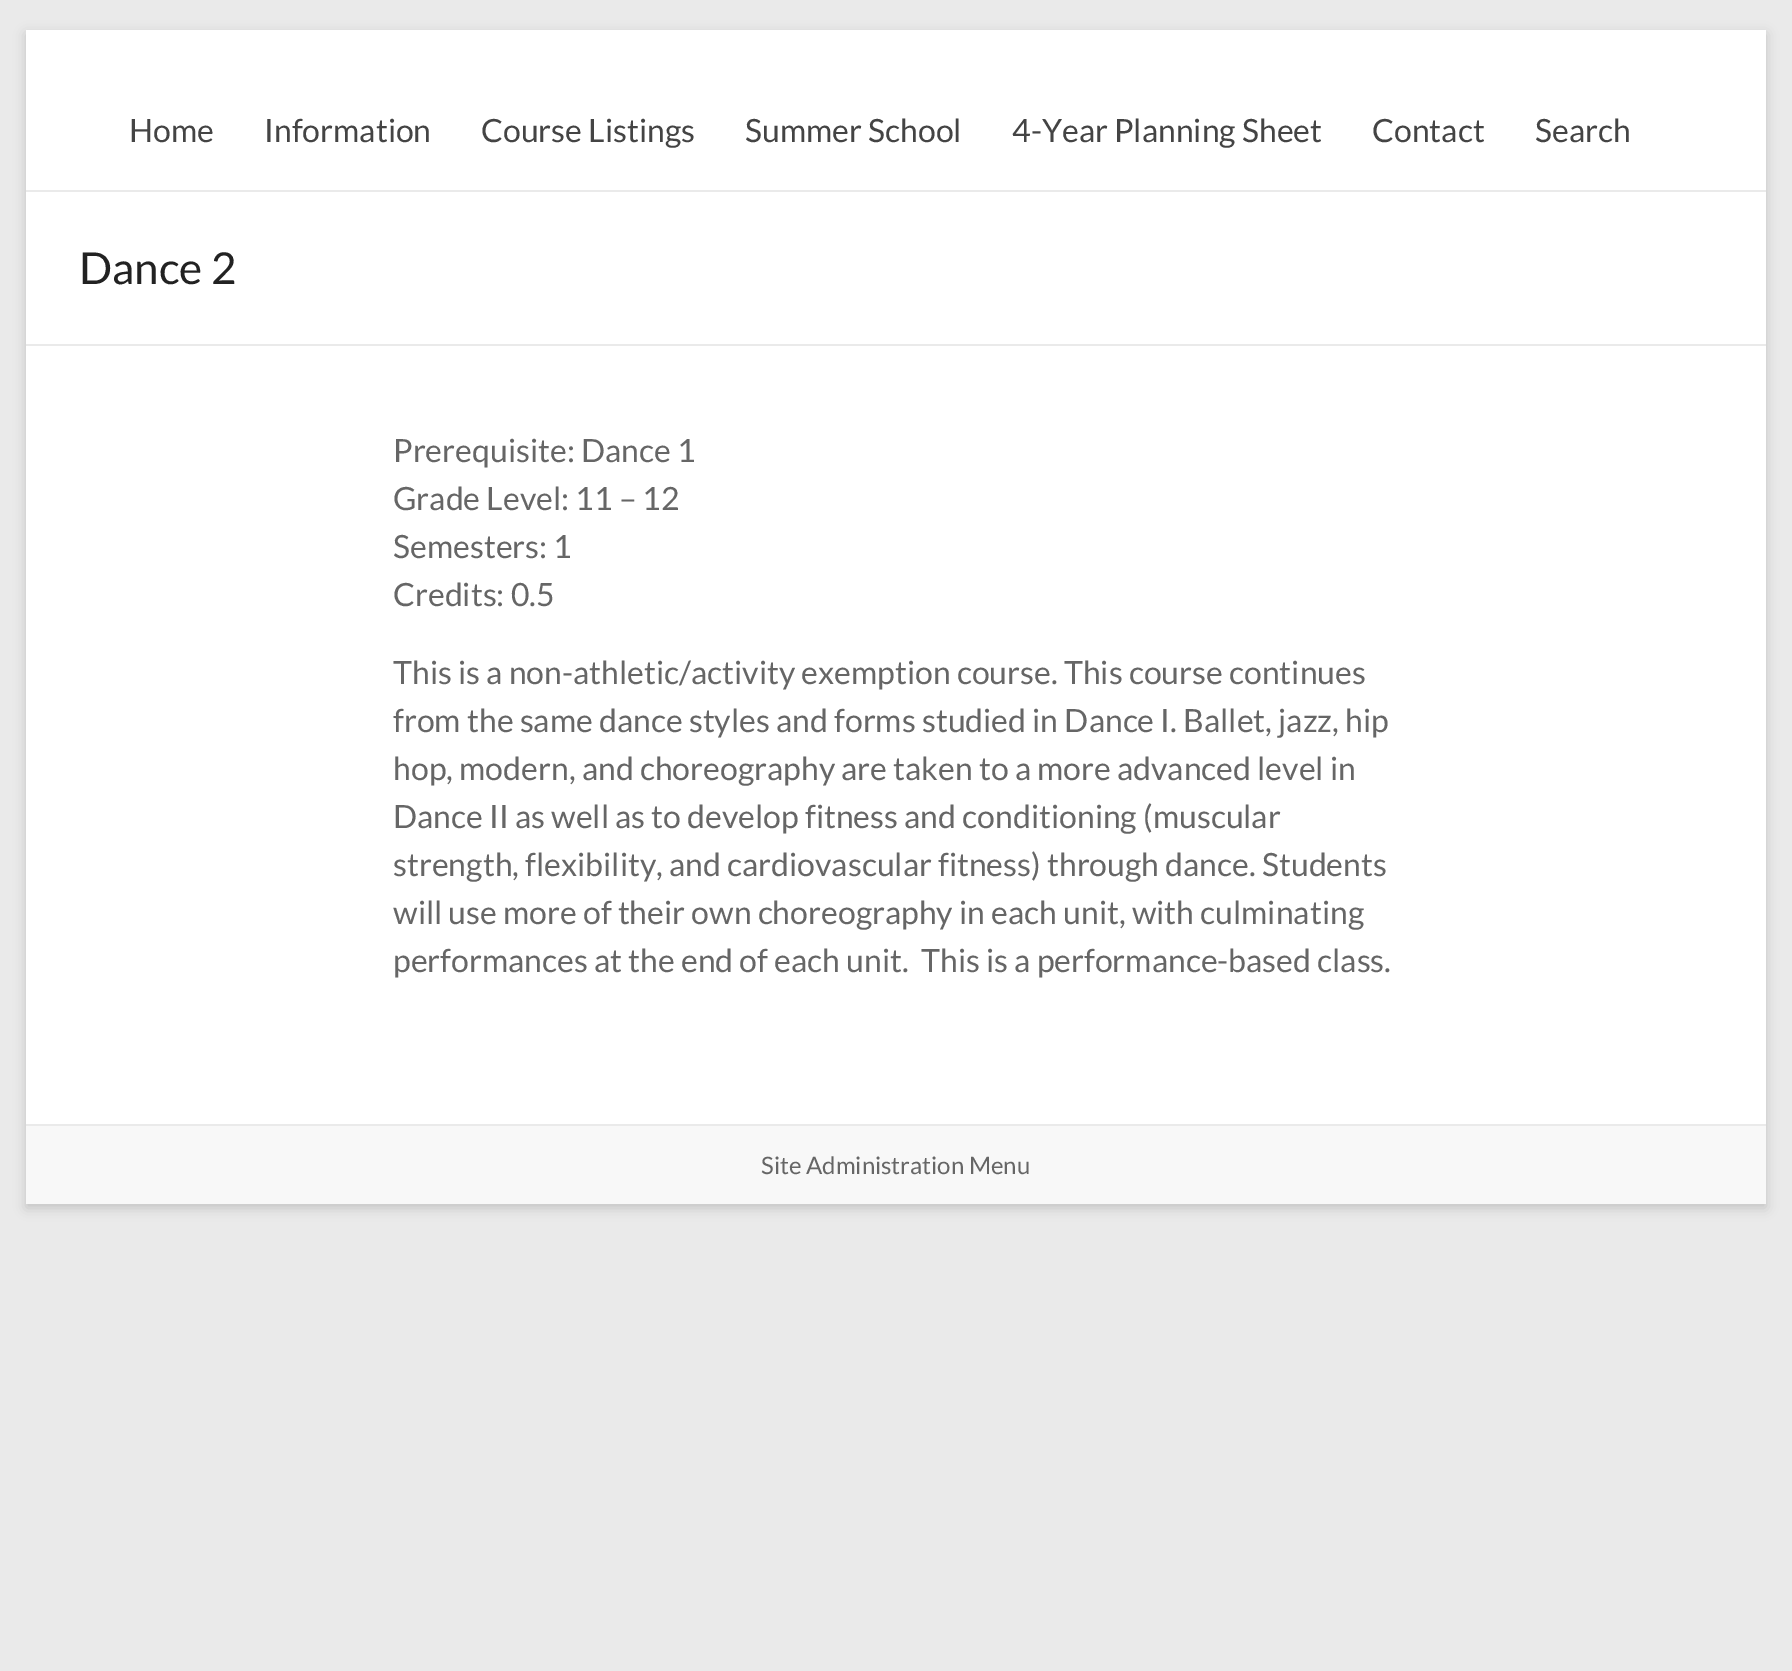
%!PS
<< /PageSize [1792 1671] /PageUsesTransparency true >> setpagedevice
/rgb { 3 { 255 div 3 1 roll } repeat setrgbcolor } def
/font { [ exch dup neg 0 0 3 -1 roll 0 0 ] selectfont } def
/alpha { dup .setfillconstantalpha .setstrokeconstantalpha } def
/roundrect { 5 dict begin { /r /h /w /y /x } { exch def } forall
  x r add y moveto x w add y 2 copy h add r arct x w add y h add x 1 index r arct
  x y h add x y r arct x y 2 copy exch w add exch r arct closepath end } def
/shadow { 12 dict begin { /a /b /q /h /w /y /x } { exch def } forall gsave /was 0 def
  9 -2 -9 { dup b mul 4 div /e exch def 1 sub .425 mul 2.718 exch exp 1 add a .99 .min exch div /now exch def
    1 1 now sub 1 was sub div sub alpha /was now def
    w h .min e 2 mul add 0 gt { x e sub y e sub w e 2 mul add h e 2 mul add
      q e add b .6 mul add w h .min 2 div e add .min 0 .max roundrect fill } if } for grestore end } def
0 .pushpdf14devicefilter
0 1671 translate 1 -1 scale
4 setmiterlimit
234 234 234 rgb
0 0 1792 1671 rectfill
100 100 100 rgb
26 34 1740 1174 0 6 0.3 shadow
[
  [26 30 1740 1094 255 255 255]
  [26 190 1740 2 234 234 234]
  [26 344 1740 2 234 234 234]
  [26 1126 1740 78 248 248 248]
  [26 1124 1740 2 234 234 234]
] { aload pop rgb rectfill } forall
/Lato-Regular 32 font
68 68 68 rgb
[
  [(Home) 129 142]
  [(Information) 264 142]
  [(Course Listings) 481 142]
  [(Summer School) 745 142]
  [(4-Year Planning Sheet) 1012 142]
  [(Contact) 1372 142]
  [(Search) 1535 142]
] { aload pop moveto show } forall
/Lato-Regular 44 font
34 34 34 rgb
79 284 moveto (Dance 2) show
/Lato-Regular 32 font
102 102 102 rgb
[
  [(Prerequisite: Dance 1) 393 462]
  [(Grade Level: 11 – 12) 393 510]
  [(Semesters: 1) 393 558]
  [(Credits: 0.5) 393 606]
  [(This is a non-athletic/activity exemption course. This course continues) 393 684]
  [(from the same dance styles and forms studied in Dance I. Ballet, jazz, hip) 393 732]
  [(hop, modern, and choreography are taken to a more advanced level in) 393 780]
  [(Dance II as well as to develop fitness and conditioning \(muscular) 393 828]
  [(strength, flexibility, and cardiovascular fitness\) through dance. Students) 393 876]
  [(will use more of their own choreography in each unit, with culminating) 393 924]
  [(performances at the end of each unit.  This is a performance-based class.) 393 972]
] { aload pop moveto show } forall
/Lato-Regular 24 font
761 1174 moveto (Site Administration Menu) show
.poppdf14devicefilter showpage
